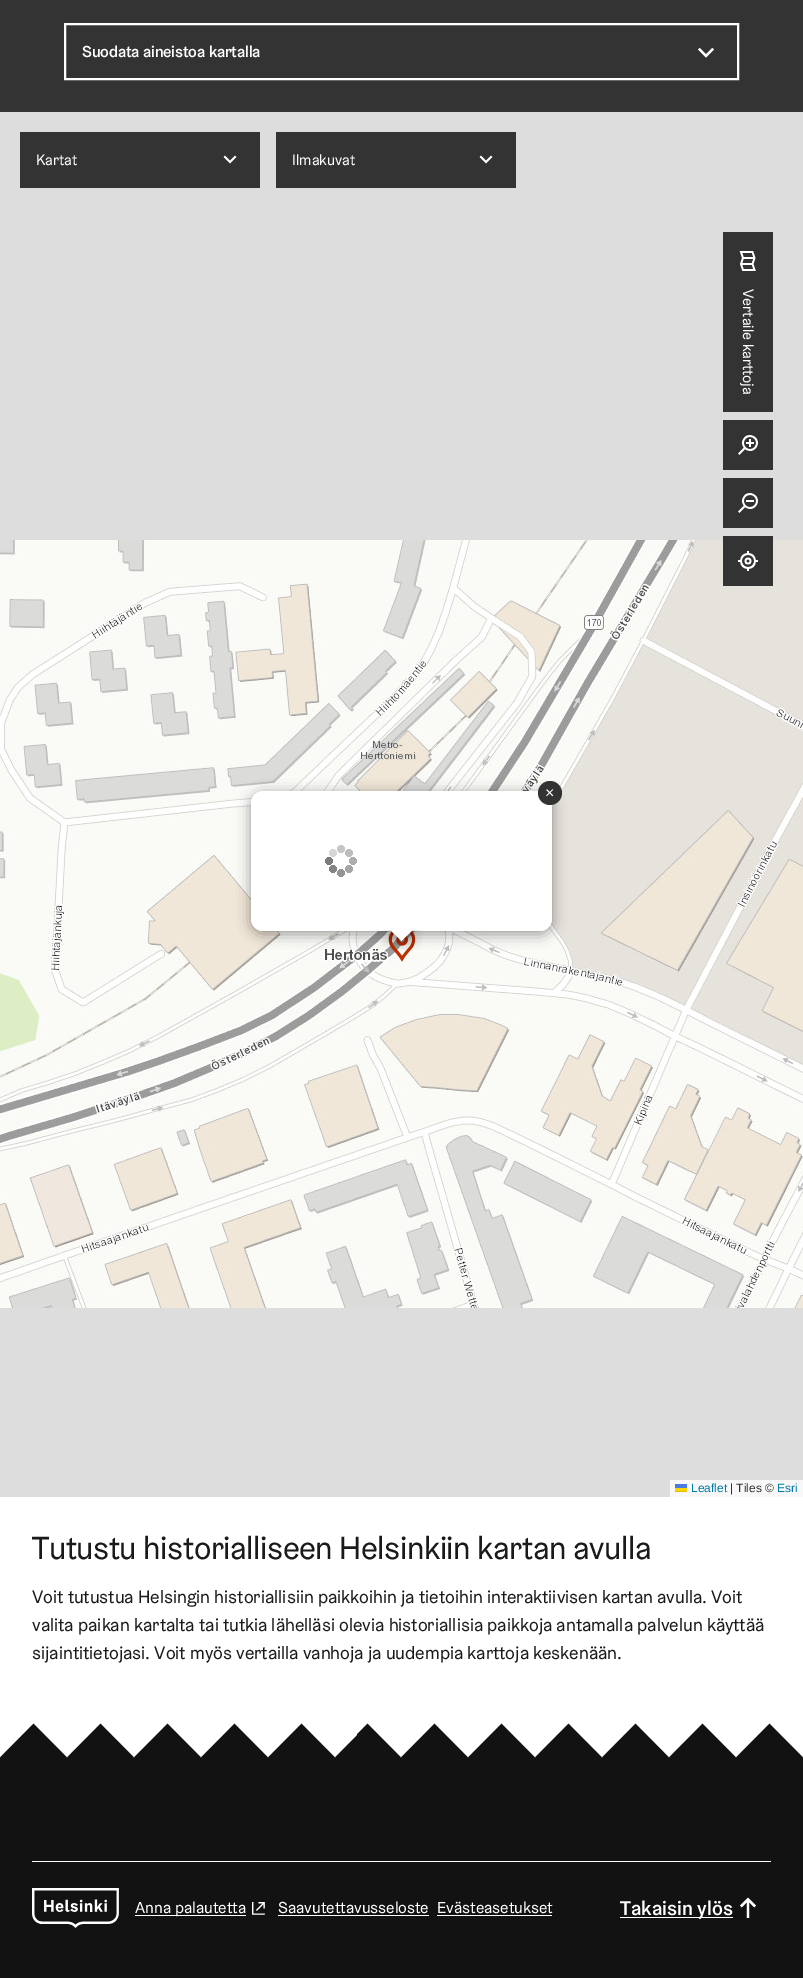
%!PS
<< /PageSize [803 1978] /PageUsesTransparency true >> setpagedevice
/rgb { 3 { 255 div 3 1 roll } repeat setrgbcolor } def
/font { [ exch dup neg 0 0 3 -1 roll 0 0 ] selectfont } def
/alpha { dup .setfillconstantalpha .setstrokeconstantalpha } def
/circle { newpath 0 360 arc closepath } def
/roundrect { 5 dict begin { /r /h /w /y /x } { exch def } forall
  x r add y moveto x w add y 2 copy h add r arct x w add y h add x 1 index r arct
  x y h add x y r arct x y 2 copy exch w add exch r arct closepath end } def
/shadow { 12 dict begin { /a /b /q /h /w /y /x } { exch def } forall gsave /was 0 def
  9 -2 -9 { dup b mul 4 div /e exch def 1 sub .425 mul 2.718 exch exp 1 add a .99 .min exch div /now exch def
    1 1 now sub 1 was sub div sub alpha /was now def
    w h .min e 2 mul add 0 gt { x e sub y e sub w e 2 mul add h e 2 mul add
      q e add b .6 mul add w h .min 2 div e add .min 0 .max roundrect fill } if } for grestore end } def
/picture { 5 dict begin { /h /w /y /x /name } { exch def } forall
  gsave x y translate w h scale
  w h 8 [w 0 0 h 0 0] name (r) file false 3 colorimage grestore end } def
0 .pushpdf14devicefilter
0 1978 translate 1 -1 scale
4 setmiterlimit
255 255 255 rgb
0 0 803 1978 rectfill
51 51 51 rgb
0 0 803 112 rectfill
255 255 255 rgb
2 setlinewidth
65 24 673 55 rectstroke
(img/1.rgb) 698 47 16 11 picture
221 221 221 rgb
0 112 803 1385 rectfill
51 51 51 rgb
20 132 240 56 rectfill
(img/2.rgb) 223 155 14 9 picture
276 132 240 56 rectfill
(img/2.rgb) 479 155 14 9 picture
723 232 50 180 rectfill
(img/3.rgb) 739 251 17 20 picture
723 420 50 50 rectfill
(img/4.rgb) 738 435 20 20 picture
723 478 50 50 rectfill
(img/5.rgb) 738 493 20 20 picture
(img/10.rgb) 521 540 256 256 picture
723 536 50 50 rectfill
(img/6.rgb) 738 551 20 20 picture
(img/7.rgb) 0 548 9 248 picture
(img/8.rgb) 9 540 256 256 picture
(img/9.rgb) 265 540 256 251 picture
(img/11.rgb) 777 540 26 256 picture
(img/12.rgb) 0 796 9 256 picture
(img/13.rgb) 9 796 256 256 picture
(img/14.rgb) 265 931 256 121 picture
(img/15.rgb) 521 796 256 256 picture
(img/16.rgb) 777 796 26 256 picture
(img/17.rgb) 0 1052 9 256 picture
(img/18.rgb) 9 1052 256 256 picture
(img/19.rgb) 265 1052 256 256 picture
(img/20.rgb) 521 1052 256 256 picture
(img/21.rgb) 777 1052 26 256 picture
(img/23.rgb) 388 931 28 31 picture
0 0 0 rgb
251 794 301 140 12 7 0.4 shadow
255 255 255 rgb
251 791 301 140 12 roundrect fill
(img/22.rgb) 325 845 32 32 picture
51 51 51 rgb
550 793 12 circle fill
gsave
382 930 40 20 rectclip
0 0 0 rgb
393 923 17 17 0 7 0.4 shadow
grestore
gsave
382 930 40 20 rectclip
255 255 255 rgb
401.5 917 moveto 413.5 929 lineto 401.5 941 lineto 389.5 929 lineto closepath fill
grestore
[
  [670 1480 133 17 248 248 248]
  [675 1484 12 4 76 123 225]
  [675 1488 12 3 255 213 0]
  [675 1491 12 1 224 188 0]
  [0 1765 803 213 18 18 18]
] { aload pop rgb rectfill } forall
(img/24.rgb) 0 1723 803 42 picture
255 255 255 rgb
32 1861 739 1 rectfill
(img/25.rgb) 32 1888 87 40 picture
135 1915 111 1 rectfill
(img/26.rgb) 252 1902 13 13 picture
[
  [278 1915 151 1 255 255 255]
  [437 1915 115 1 255 255 255]
  [620 1917 113 1 255 255 255]
] { aload pop rgb rectfill } forall
(img/27.rgb) 740 1897 16 21 picture
/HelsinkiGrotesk-Medium 16 font
82 57 moveto -0.2 0 (Suodata aineistoa kartalla) ashow
/HelsinkiGrotesk-Regular 15 font
36 165 moveto (Kartat) show
292 165 moveto (Ilmakuvat) show
gsave 743 289 translate 90 rotate 0 0 moveto (Vertaile karttoja) show grestore
/LiberationSans-Regular 16 font
545 798 moveto (×) show
/LiberationSans-Regular 12 font
0 120 168 rgb
691 1492 moveto (Leaflet) show
51 51 51 rgb
730 1492 moveto (| Tiles ©) show
0 120 168 rgb
777 1492 moveto (Esri) show
/HelsinkiGrotesk-Regular 32 font
26 26 26 rgb
32 1559 moveto -0.4 0 (Tutustu historialliseen Helsinkiin kartan avulla) ashow
/HelsinkiGrotesk-Regular 18 font
[
  [(Voit tutustua Helsingin historiallisiin paikkoihin ja tietoihin interaktiivisen kartan avulla. Voit) 32 1603]
  [(valita paikan kartalta tai tutkia lähelläsi olevia historiallisia paikkoja antamalla palvelun käyttää) 32 1631]
  [(sijaintitietojasi. Voit myös vertailla vanhoja ja uudempia karttoja keskenään.) 32 1659]
] { aload pop moveto show } forall
/HelsinkiGrotesk-Regular 16 font
255 255 255 rgb
[
  [(Anna palautetta) 135 1913]
  [(Saavutettavusseloste) 278 1913]
  [(Evästeasetukset) 437 1913]
] { aload pop moveto show } forall
/HelsinkiGrotesk-Medium 20 font
620 1915 moveto (Takaisin ylös) show
.poppdf14devicefilter showpage
